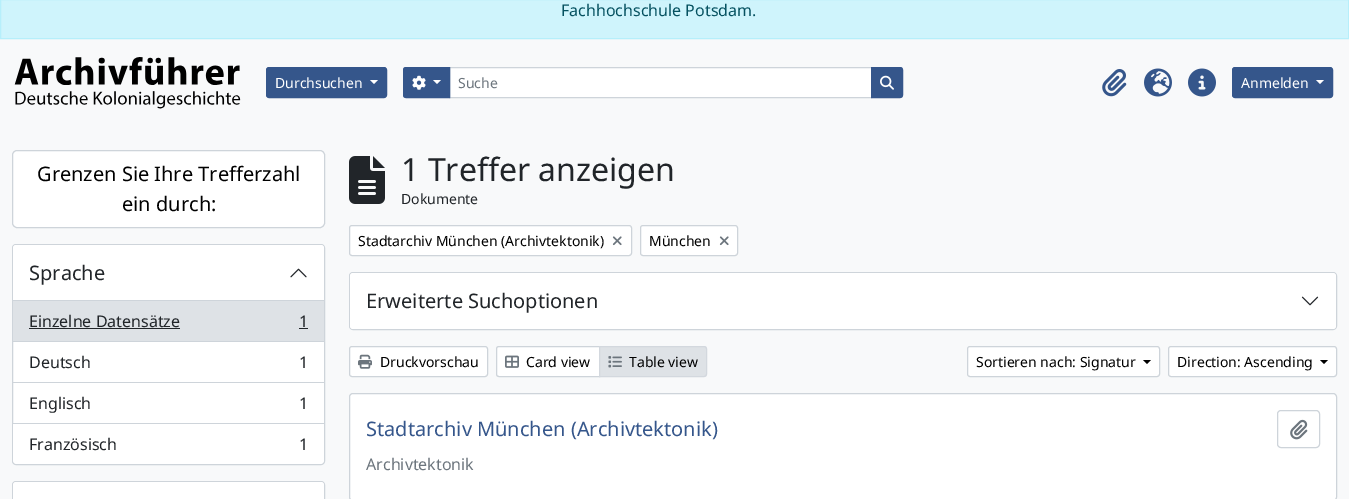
%!PS
<< /PageSize [1349 499] >> setpagedevice
/rgb { 3 { 255 div 3 1 roll } repeat setrgbcolor } def
/font { [ exch dup neg 0 0 3 -1 roll 0 0 ] selectfont } def
/roundrect { 5 dict begin { /r /h /w /y /x } { exch def } forall
  x r add y moveto x w add y 2 copy h add r arct x w add y h add x 1 index r arct
  x y h add x y r arct x y 2 copy exch w add exch r arct closepath end } def
/picture { 5 dict begin { /h /w /y /x /name } { exch def } forall
  gsave x y translate w h scale
  w h 8 [w 0 0 h 0 0] name (r) file false 3 colorimage grestore end } def
0 499 translate 1 -1 scale
4 setmiterlimit
248 249 250 rgb
0 0 1349 499 rectfill
207 244 252 rgb
0.5 -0.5 moveto 1348.5 -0.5 lineto 1348.5 38.5 lineto 0.5 38.5 lineto closepath gsave fill grestore
182 239 251 rgb
stroke
(img/1.rgb) 14 57 227 52 picture
53 86 139 rgb
266.5 67.5 120 30 2.5 roundrect gsave fill grestore
stroke
255 255 255 rgb
370 80 moveto 378 80 lineto 374 84 lineto closepath fill
449.5 67.5 moveto 871.5 67.5 lineto 871.5 97.5 lineto 449.5 97.5 lineto closepath gsave fill grestore
206 212 218 rgb
stroke
53 86 139 rgb
406 67.5 moveto 449.5 67.5 lineto 449.5 97.5 lineto 406 97.5 lineto 404.5 97.5 403.5 96.5 403.5 95 curveto 403.5 70 lineto 403.5 68.5 404.5 67.5 406 67.5 curveto closepath gsave fill grestore
stroke
(img/2.rgb) 412 75 14 15 picture
255 255 255 rgb
433 80 moveto 441 80 lineto 437 84 lineto closepath fill
53 86 139 rgb
871.5 67.5 moveto 900 67.5 lineto 901.5 67.5 902.5 68.5 902.5 70 curveto 902.5 95 lineto 902.5 96.5 901.5 97.5 900 97.5 curveto 871.5 97.5 lineto closepath gsave fill grestore
stroke
(img/3.rgb) 880 75 14 15 picture
(img/4.rgb) 1102 69 25 28 picture
(img/5.rgb) 1144 68 28 29 picture
(img/6.rgb) 1188 68 28 29 picture
1232.5 67.5 100 30 2.5 roundrect gsave fill grestore
stroke
255 255 255 rgb
1316 80 moveto 1324 80 lineto 1320 84 lineto closepath fill
12.5 150.5 312 77 4.5 roundrect gsave fill grestore
206 212 218 rgb
stroke
255 255 255 rgb
12.5 244.5 312 220 3.5 roundrect gsave fill grestore
206 212 218 rgb
stroke
255 255 255 rgb
16 245 moveto 321 245 lineto 322.5 245 324 246.5 324 248 curveto 324 301 lineto 13 301 lineto 13 248 lineto 13 246.5 14.5 245 16 245 curveto closepath fill
206 212 218 rgb
13 300 311 1 rectfill
(img/7.rgb) 290 268 17 10 picture
[
  [13 301 311 40 222 226 230]
  [13 341 311 1 206 212 218]
  [29 328 151 1 33 37 41]
  [299 328 9 1 33 37 41]
  [13 382 311 1 206 212 218]
  [13 423 311 1 206 212 218]
] { aload pop rgb rectfill } forall
255 255 255 rgb
13 424 moveto 324 424 lineto 324 460 lineto 324 462 322 464 320 464 curveto 17 464 lineto 15 464 13 462 13 460 curveto closepath fill
206 212 218 rgb
12.5 481.5 312 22 3.5 roundrect stroke
255 255 255 rgb
16 482 moveto 321 482 lineto 322.5 482 324 483.5 324 485 curveto 324 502 lineto 13 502 lineto 13 485 lineto 13 483.5 14.5 482 16 482 curveto closepath fill
(img/8.rgb) 349 156 36 48 picture
349.5 225.5 282 30 2.5 roundrect gsave fill grestore
206 212 218 rgb
stroke
(img/9.rgb) 612 236 10 10 picture
255 255 255 rgb
640.5 225.5 97 30 2.5 roundrect gsave fill grestore
206 212 218 rgb
stroke
(img/9.rgb) 719 236 10 10 picture
349.5 272.5 987 57 3.5 roundrect stroke
255 255 255 rgb
350 273 986 56 3 roundrect fill
(img/10.rgb) 1301 296 18 10 picture
349.5 346.5 138 30 2.5 roundrect gsave fill grestore
206 212 218 rgb
stroke
(img/11.rgb) 358 354 14 15 picture
255 255 255 rgb
499 346.5 moveto 599.5 346.5 lineto 599.5 376.5 lineto 499 376.5 lineto 497.5 376.5 496.5 375.5 496.5 374 curveto 496.5 349 lineto 496.5 347.5 497.5 346.5 499 346.5 curveto closepath gsave fill grestore
206 212 218 rgb
stroke
(img/12.rgb) 505 355 14 13 picture
222 226 230 rgb
599.5 346.5 moveto 704 346.5 lineto 705.5 346.5 706.5 347.5 706.5 349 curveto 706.5 374 lineto 706.5 375.5 705.5 376.5 704 376.5 curveto 599.5 376.5 lineto closepath gsave fill grestore
211 216 222 rgb
stroke
(img/13.rgb) 608 356 14 12 picture
255 255 255 rgb
967.5 346.5 192 30 2.5 roundrect gsave fill grestore
206 212 218 rgb
stroke
0 0 0 rgb
1143 360 moveto 1151 360 lineto 1147 364 lineto closepath fill
255 255 255 rgb
1168.5 346.5 168 30 2.5 roundrect gsave fill grestore
206 212 218 rgb
stroke
0 0 0 rgb
1320 360 moveto 1328 360 lineto 1324 364 lineto closepath fill
255 255 255 rgb
349.5 393.5 987 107 3.5 roundrect gsave fill grestore
206 212 218 rgb
stroke
1277.5 410.5 42 37 3.5 roundrect stroke
(img/14.rgb) 1290 419 18 21 picture
/NotoSans-Regular 16 font
5 81 96 rgb
561 16 moveto (Fachhochschule Potsdam.) show
/NotoSans-Regular 14 font
255 255 255 rgb
275 88 moveto (Durchsuchen) show
108 117 125 rgb
458 88 moveto (Suche) show
255 255 255 rgb
1241 88 moveto (Anmelden) show
/NotoSans-Regular 20 font
0 0 0 rgb
37 181 moveto (Grenzen Sie Ihre Trefferzahl) show
122 211 moveto (ein durch:) show
33 37 41 rgb
29 280 moveto (Sprache) show
/NotoSans-Regular 16 font
[
  [(Einzelne Datensätze) 29 327]
  [(1) 299 327]
  [(Deutsch) 29 368]
  [(1) 299 368]
  [(Englisch) 29 409]
  [(1) 299 409]
  [(Französisch) 29 450]
  [(1) 299 450]
] { aload pop moveto show } forall
/NotoSans-Regular 32 font
401 181 moveto (1 Treffer anzeigen) show
/NotoSans-Regular 14 font
401 204 moveto (Dokumente) show
0 0 0 rgb
358 246 moveto (Stadtarchiv München \(Archivtektonik\)) show
649 246 moveto (München) show
/NotoSans-Regular 20 font
33 37 41 rgb
366 308 moveto (Erweiterte Suchoptionen) show
/NotoSans-Regular 14 font
0 0 0 rgb
[
  [(Druckvorschau) 380 367]
  [(Card view) 526 367]
  [(Table view) 629 367]
  [(Sortieren nach: Signatur) 976 367]
  [(Direction: Ascending) 1177 367]
] { aload pop moveto show } forall
/NotoSans-Regular 20 font
53 86 139 rgb
366 436 moveto (Stadtarchiv München \(Archivtektonik\)) show
/NotoSans-Regular 16 font
108 117 125 rgb
366 470 moveto (Archivtektonik) show
showpage
